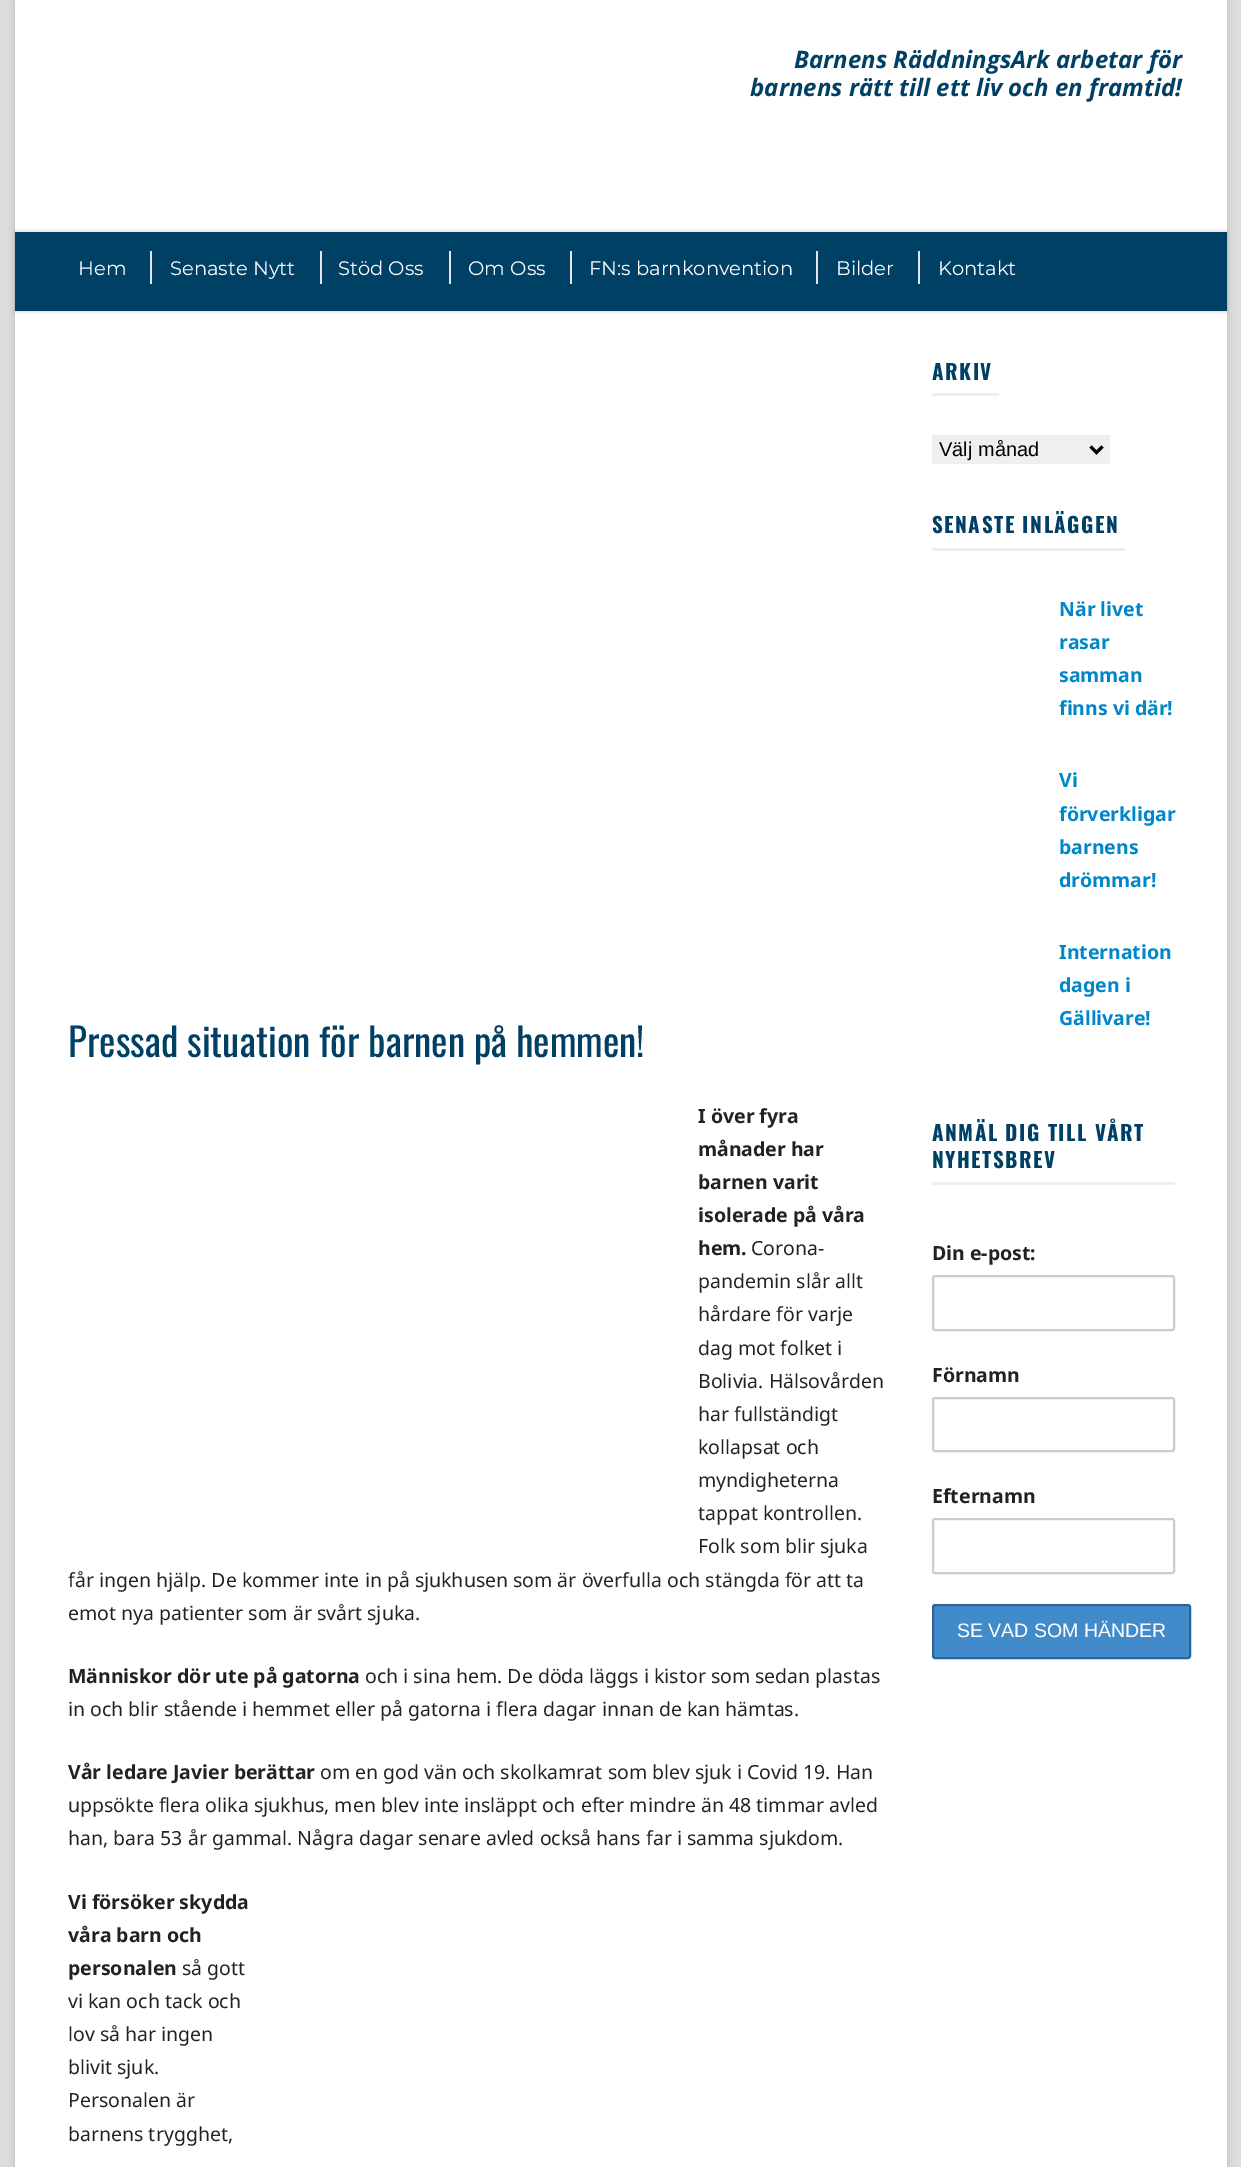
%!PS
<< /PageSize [1241 2167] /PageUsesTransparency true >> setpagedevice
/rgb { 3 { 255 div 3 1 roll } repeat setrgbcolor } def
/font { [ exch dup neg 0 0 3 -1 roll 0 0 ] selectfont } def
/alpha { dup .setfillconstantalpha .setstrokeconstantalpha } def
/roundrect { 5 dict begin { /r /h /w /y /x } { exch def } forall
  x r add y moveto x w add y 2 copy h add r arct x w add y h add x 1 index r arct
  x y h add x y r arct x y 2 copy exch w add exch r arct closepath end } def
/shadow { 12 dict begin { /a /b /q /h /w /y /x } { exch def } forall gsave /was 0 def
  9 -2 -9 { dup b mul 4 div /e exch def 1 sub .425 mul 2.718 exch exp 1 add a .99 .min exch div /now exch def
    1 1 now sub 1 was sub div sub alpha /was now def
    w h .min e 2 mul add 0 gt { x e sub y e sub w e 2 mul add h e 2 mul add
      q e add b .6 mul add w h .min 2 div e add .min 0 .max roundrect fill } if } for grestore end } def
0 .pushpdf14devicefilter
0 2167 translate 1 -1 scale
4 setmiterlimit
221 221 221 rgb
0 0 1241 2167 rectfill
0 0 0 rgb
15 2 1212 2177 0 4 0.15 shadow
255 255 255 rgb
15 0 1212 2167 rectfill
0 0 0 rgb
15 231 1212 81 0 1.5 0.15 shadow
[
  [15 232 1212 79 0 64 101]
  [15 230 1212 2 236 236 236]
  [150 251 2 33 229 229 229]
  [320 251 2 33 229 229 229]
  [449 251 2 33 229 229 229]
  [570 251 2 33 229 229 229]
  [816 251 2 33 229 229 229]
  [918 251 2 33 229 229 229]
  [932 393 67 3 238 238 238]
  [932 435 178 29 239 239 239]
] { aload pop rgb rectfill } forall
0 0 0 rgb
3 setlinewidth
1090.5 446.5 moveto 1096.5 452.5 lineto 1102.5 446.5 lineto stroke
238 238 238 rgb
932 548 193 3 rectfill
932 1182 243 3 rectfill
204 204 204 rgb
2 setlinewidth
933 1276 241 54 2 roundrect stroke
933 1398 241 53 2 roundrect stroke
933 1519 241 54 2 roundrect stroke
66 139 202 rgb
933 1605 257 53 2 roundrect gsave fill grestore
42 100 150 rgb
stroke
/OpenSans-BoldItalic 24 font
0 64 101 rgb
794 68 moveto (Barnens RäddningsArk arbetar för) show
750 96 moveto (barnens rätt till ett liv och en framtid!) show
/Montserrat-Regular 19.5 font
255 255 255 rgb
[
  [(Hem) 78 275]
  [(Senaste Nytt) 170 275]
  [(Stöd Oss) 338 275]
  [(Om Oss) 468 275]
  [(FN:s barnkonvention) 589 275]
  [(Bilder) 836 275]
  [(Kontakt) 938 275]
] { aload pop moveto show } forall
/Oswald-Regular 39 font
0 64 101 rgb
68 1057 moveto (Pressad situation för barnen på hemmen!) show
/NotoSans-Bold 19.5 font
34 34 34 rgb
[
  [(I över fyra) 698 1123]
  [(månader har) 698 1156]
  [(barnen varit) 698 1189]
  [(isolerade på våra) 698 1222]
  [(hem.) 698 1255]
] { aload pop moveto show } forall
/NotoSans-Regular 19.5 font
[
  [(Corona-) 751 1255]
  [(pandemin slår allt) 698 1288]
  [(hårdare för varje) 698 1321]
  [(dag mot folket i) 698 1355]
  [(Bolivia. Hälsovården) 698 1388]
  [(har fullständigt) 698 1421]
  [(kollapsat och) 698 1454]
  [(myndigheterna) 698 1487]
  [(tappat kontrollen.) 698 1520]
  [(Folk som blir sjuka) 698 1553]
  [(får ingen hjälp. De kommer inte in på sjukhusen som är överfulla och stängda för att ta) 68 1587]
  [(emot nya patienter som är svårt sjuka.) 68 1620]
] { aload pop moveto show } forall
/NotoSans-Bold 19.5 font
68 1683 moveto (Människor dör ute på gatorna) show
/NotoSans-Regular 19.5 font
365 1683 moveto (och i sina hem. De döda läggs i kistor som sedan plastas) show
68 1716 moveto (in och blir stående i hemmet eller på gatorna i flera dagar innan de kan hämtas.) show
/NotoSans-Bold 19.5 font
68 1779 moveto (Vår ledare Javier berättar) show
/NotoSans-Regular 19.5 font
[
  [(om en god vän och skolkamrat som blev sjuk i Covid 19. Han) 320 1779]
  [(uppsökte flera olika sjukhus, men blev inte insläppt och efter mindre än 48 timmar avled) 68 1812]
  [(han, bara 53 år gammal. Några dagar senare avled också hans far i samma sjukdom.) 68 1845]
] { aload pop moveto show } forall
/NotoSans-Bold 19.5 font
[
  [(Vi försöker skydda) 68 1909]
  [(våra barn och) 68 1942]
  [(personalen) 68 1975]
] { aload pop moveto show } forall
/NotoSans-Regular 19.5 font
[
  [(så gott) 182 1975]
  [(vi kan och tack och) 68 2008]
  [(lov så har ingen) 68 2041]
  [(blivit sjuk.) 68 2074]
  [(Personalen är) 68 2107]
  [(barnens trygghet,) 68 2141]
] { aload pop moveto show } forall
/Oswald-Bold 21 font
0 64 101 rgb
932 380 moveto 1.5 0 (ARKIV) ashow
/LiberationSans-Regular 20 font
0 0 0 rgb
939 456 moveto (Välj månad) show
/Oswald-Bold 21 font
0 64 101 rgb
932 533 moveto 1.5 0 (SENASTE INLÄGGEN) ashow
/NotoSans-Bold 19.5 font
0 134 201 rgb
[
  [(När livet) 1059 616]
  [(rasar) 1059 649]
  [(samman) 1059 682]
  [(finns vi där!) 1059 715]
  [(Vi) 1059 787]
  [(förverkligar) 1059 821]
  [(barnens) 1059 854]
  [(drömmar!) 1059 887]
  [(Internation) 1059 959]
  [(dagen i) 1059 992]
  [(Gällivare!) 1059 1025]
] { aload pop moveto show } forall
/Oswald-Bold 21 font
0 64 101 rgb
932 1141 moveto 1.5 0 (ANMÄL DIG TILL VÅRT) ashow
932 1168 moveto 1.5 0 (NYHETSBREV) ashow
/NotoSans-Bold 19.5 font
34 34 34 rgb
[
  [(Din e-post:) 932 1260]
  [(Förnamn) 932 1382]
  [(Efternamn) 932 1503]
] { aload pop moveto show } forall
/LiberationSans-Regular 19.5 font
255 255 255 rgb
957 1637 moveto (SE VAD SOM HÄNDER) show
.poppdf14devicefilter showpage
